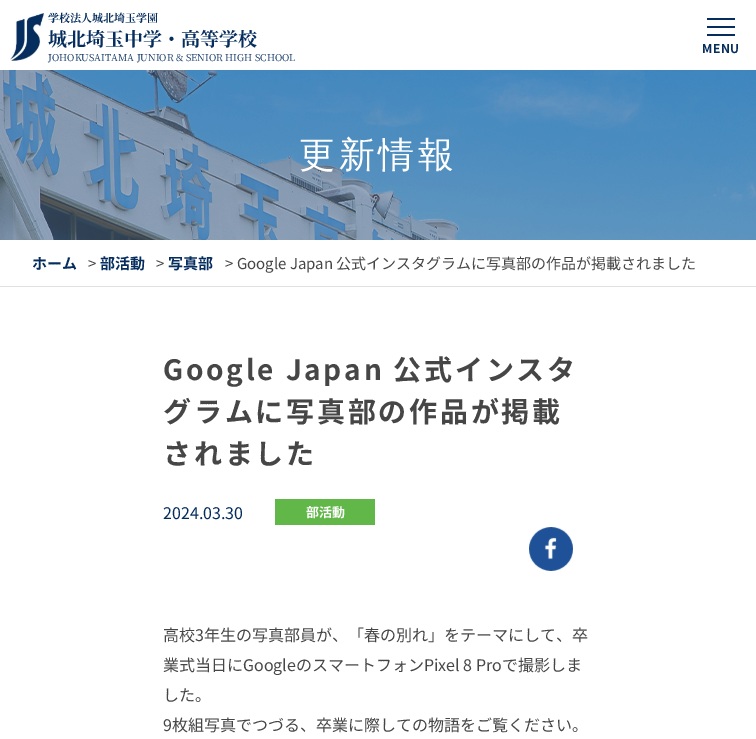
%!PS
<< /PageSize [756 739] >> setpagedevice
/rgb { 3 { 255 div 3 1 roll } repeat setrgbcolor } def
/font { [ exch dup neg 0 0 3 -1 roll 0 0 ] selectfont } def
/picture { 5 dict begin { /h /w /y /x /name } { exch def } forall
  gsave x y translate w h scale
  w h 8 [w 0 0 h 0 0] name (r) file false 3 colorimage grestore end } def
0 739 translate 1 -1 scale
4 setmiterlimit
255 255 255 rgb
0 0 756 739 rectfill
(img/1.rgb) 10 13 34 48 picture
[
  [707 18 28 2 5 45 94]
  [707 26 28 2 5 45 94]
  [707 34 28 2 5 45 94]
] { aload pop rgb rectfill } forall
(img/2.rgb) 0 70 756 170 picture
224 225 227 rgb
0 286 756 1 rectfill
97 183 72 rgb
275 499 100 26 rectfill
(img/3.rgb) 529 527 44 44 picture
/NotoSerifJP-Bold 11 font
5 45 94 rgb
48 22 moveto (学校法人城北埼玉学園) show
/NotoSerifJP-Bold 19 font
48 46 moveto (城北埼玉中学・高等学校) show
/NotoSerifJP-Regular 9.5 font
48 61 moveto (JOHOKUSAITAMA JUNIOR & SENIOR HIGH SCHOOL) show
/NotoSansJP-Bold 12 font
702 53 moveto 0.5 0 (MENU) ashow
/WenQuanYiZenHei-Medium 36 font
255 255 255 rgb
299 167 moveto 3.5 0 (更新情報) ashow
/NotoSansJP-Bold 15 font
5 45 94 rgb
32 269 moveto (ホーム) show
/NotoSansJP-Regular 15 font
70 70 70 rgb
88 269 moveto (>) show
/NotoSansJP-Bold 15 font
5 45 94 rgb
100 269 moveto (部活動) show
/NotoSansJP-Regular 15 font
70 70 70 rgb
156 269 moveto (>) show
/NotoSansJP-Bold 15 font
5 45 94 rgb
168 269 moveto (写真部) show
/NotoSansJP-Regular 15 font
70 70 70 rgb
225 269 moveto (> Google Japan 公式インスタグラムに写真部の作品が掲載されました) show
/NotoSansJP-Bold 28 font
163 380 moveto 2.75 0 (Google Japan 公式インスタ) ashow
163 422 moveto 2.75 0 (グラムに写真部の作品が掲載) ashow
163 464 moveto 2.75 0 (されました) ashow
/NotoSansJP-Regular 16 font
5 45 94 rgb
163 519 moveto (2024.03.30) show
/NotoSansJP-Bold 13 font
255 255 255 rgb
306 517 moveto (部活動) show
/NotoSansJP-Regular 16 font
70 70 70 rgb
[
  [(高校3年生の写真部員が、「春の別れ」をテーマにして、卒) 163 641]
  [(業式当日にGoogleのスマートフォンPixel 8 Proで撮影しま) 163 671]
  [(した。) 163 701]
  [(9枚組写真でつづる、卒業に際しての物語をご覧ください。) 163 731]
] { aload pop moveto show } forall
showpage
